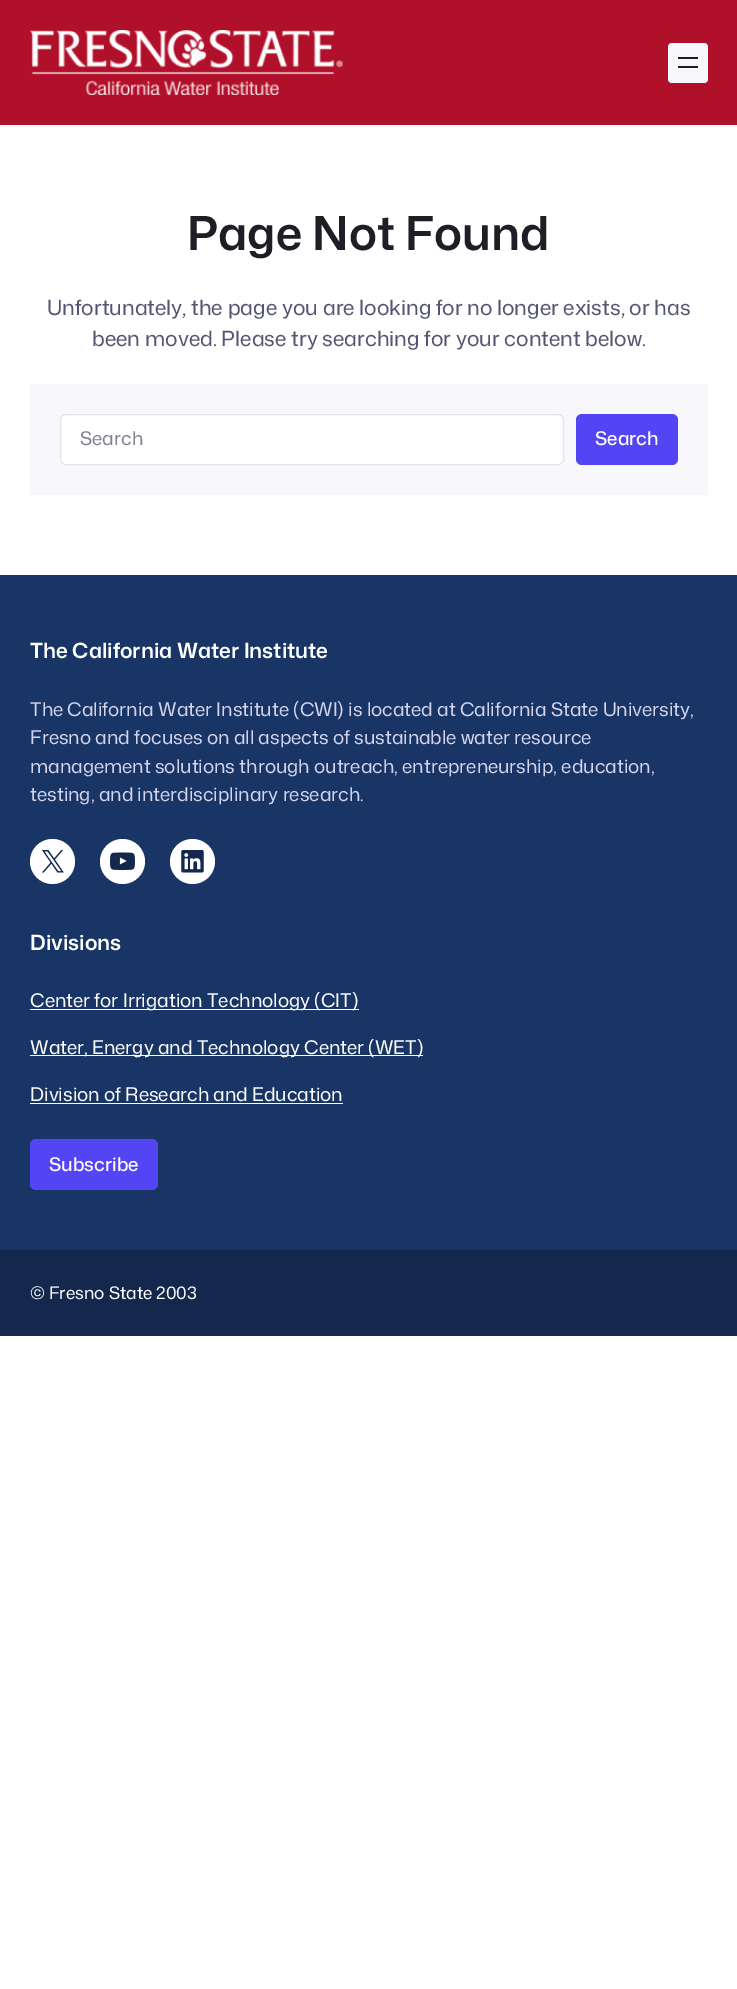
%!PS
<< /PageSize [737 1989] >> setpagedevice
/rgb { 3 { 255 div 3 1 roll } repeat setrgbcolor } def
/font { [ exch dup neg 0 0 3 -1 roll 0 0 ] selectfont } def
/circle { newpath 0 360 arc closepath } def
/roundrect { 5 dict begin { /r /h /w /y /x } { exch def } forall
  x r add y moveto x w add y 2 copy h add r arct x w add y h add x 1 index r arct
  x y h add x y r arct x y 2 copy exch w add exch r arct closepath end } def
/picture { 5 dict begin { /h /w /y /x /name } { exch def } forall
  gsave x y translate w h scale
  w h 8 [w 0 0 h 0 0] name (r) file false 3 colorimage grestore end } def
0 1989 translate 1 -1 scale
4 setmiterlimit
255 255 255 rgb
0 0 737 1989 rectfill
177 16 43 rgb
0 0 737 125 rectfill
(img/1.rgb) 30 30 313 65 picture
248 247 252 rgb
668 43 40 40 4 roundrect fill
[
  [678 57 20 2 30 30 38]
  [678 66 20 2 30 30 38]
  [30 384 678 111 248 247 252]
] { aload pop rgb rectfill } forall
255 255 255 rgb
60.5 414.5 503 50 5.5 roundrect gsave fill grestore
227 227 240 rgb
stroke
83 68 244 rgb
576 414 102 51 6 roundrect fill
25 53 101 rgb
0 575 737 675 rectfill
255 255 255 rgb
52.5 861.5 22.5 circle fill
(img/2.rgb) 42 850 22 23 picture
122.5 861.5 22.5 circle fill
(img/3.rgb) 110 852 25 19 picture
192.5 861.5 22.5 circle fill
(img/4.rgb) 181 850 23 23 picture
[
  [30 1009 329 1 255 255 255]
  [30 1055 393 1 255 255 255]
  [30 1103 313 1 255 255 255]
] { aload pop rgb rectfill } forall
83 68 244 rgb
30 1139 128 51 6 roundrect fill
19 40 76 rgb
0 1250 737 86 rectfill
/MonaSans-SemiBold 46.75 font
30 30 38 rgb
187 250 moveto (Page Not Found) show
/MonaSans-Regular 20.95 font
84 84 115 rgb
47 315 moveto (Unfortunately, the page you are looking for no longer exists, or has) show
92 346 moveto (been moved. Please try searching for your content below.) show
/MonaSans-Regular 18.85 font
127 127 150 rgb
80 445 moveto (Search) show
/MonaSans-Medium 18.85 font
255 255 255 rgb
595 445 moveto (Search) show
/MonaSans-SemiBold 20.95 font
30 658 moveto (The California Water Institute) show
/MonaSans-Regular 18.85 font
212 212 236 rgb
[
  [(The California Water Institute \(CWI\) is located at California State University,) 30 716]
  [(Fresno and focuses on all aspects of sustainable water resource) 30 744]
  [(management solutions through outreach, entrepreneurship, education,) 30 773]
  [(testing, and interdisciplinary research.) 30 801]
] { aload pop moveto show } forall
/MonaSans-SemiBold 20.95 font
255 255 255 rgb
30 950 moveto (Divisions) show
/MonaSans-Regular 18.85 font
[
  [(Center for Irrigation Technology \(CIT\)) 30 1007]
  [(Water, Energy and Technology Center \(WET\)) 30 1054]
  [(Division of Research and Education) 30 1101]
] { aload pop moveto show } forall
/MonaSans-Medium 18.85 font
49 1171 moveto (Subscribe) show
/MonaSans-Regular 17.25 font
30 1299 moveto (© Fresno State 2003) show
showpage
